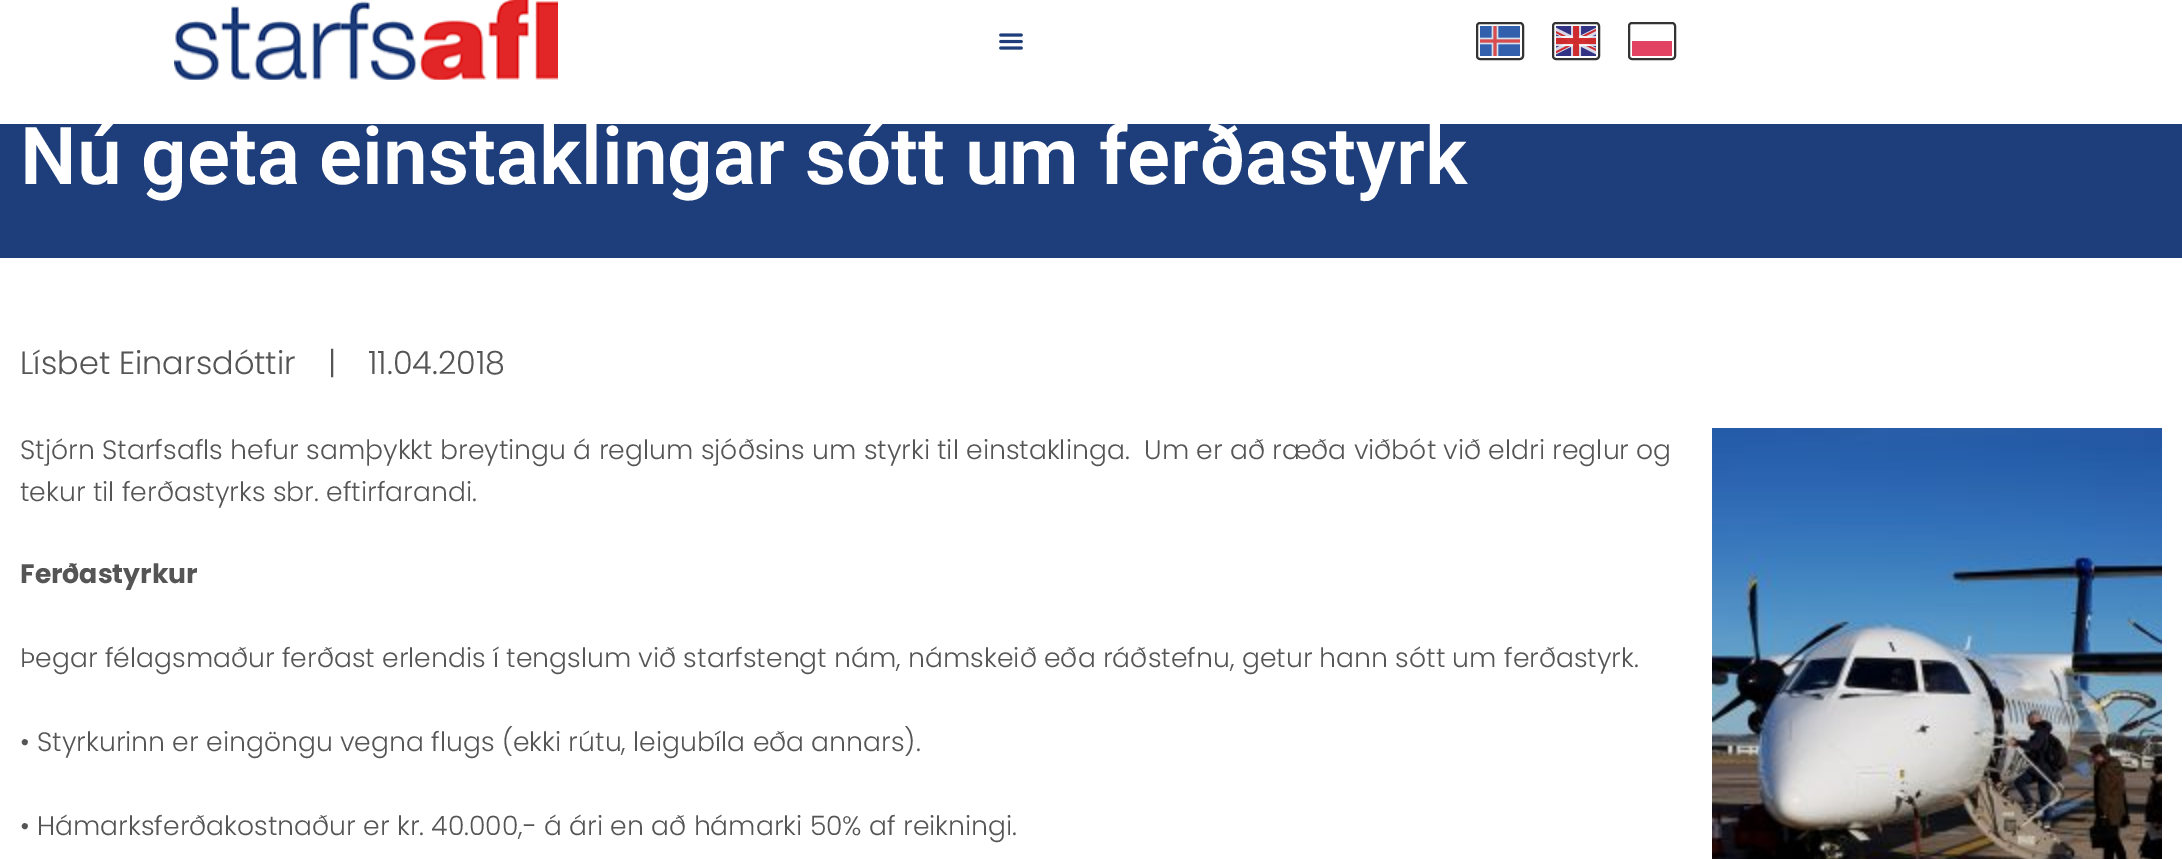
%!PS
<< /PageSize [2182 859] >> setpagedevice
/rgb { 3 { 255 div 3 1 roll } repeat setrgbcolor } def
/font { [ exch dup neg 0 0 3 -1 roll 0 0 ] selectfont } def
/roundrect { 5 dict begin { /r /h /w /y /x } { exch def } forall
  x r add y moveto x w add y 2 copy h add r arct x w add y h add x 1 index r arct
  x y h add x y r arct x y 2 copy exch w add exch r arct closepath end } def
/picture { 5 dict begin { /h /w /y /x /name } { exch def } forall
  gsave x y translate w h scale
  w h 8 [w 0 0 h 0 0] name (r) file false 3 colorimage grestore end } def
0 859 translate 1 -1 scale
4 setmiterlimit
255 255 255 rgb
0 0 2182 859 rectfill
(img/1.rgb) 174 0 384 80 picture
(img/2.rgb) 999 33 24 17 picture
51 51 51 rgb
2 setlinewidth
1477 23 46 36 3 roundrect stroke
(img/3.rgb) 1480 26 40 30 picture
1553 23 46 36 3 roundrect stroke
(img/4.rgb) 1556 26 40 30 picture
1629 23 46 36 3 roundrect stroke
227 67 99 rgb
1632 41 40 15 rectfill
30 62 123 rgb
0 124 2182 134 rectfill
(img/5.rgb) 1712 428 450 431 picture
/Roboto-SemiBold 80 font
255 255 255 rgb
20 184 moveto (Nú geta einstaklingar sótt um ferðastyrk) show
/Poppins-Light 32 font
85 85 85 rgb
[
  [(Lísbet Einarsdóttir) 20 374]
  [(|) 328 374]
  [(11.04.2018) 368 374]
] { aload pop moveto show } forall
/Poppins-Light 26.67 font
20 459 moveto (Stjórn Starfsafls hefur samþykkt breytingu á reglum sjóðsins um styrki til einstaklinga.  Um er að ræða viðbót við eldri reglur og) show
20 501 moveto (tekur til ferðastyrks sbr. eftirfarandi.) show
/Poppins-Bold 26.67 font
20 583 moveto (Ferðastyrkur) show
/Poppins-Light 26.67 font
[
  [(Þegar félagsmaður ferðast erlendis í tengslum við starfstengt nám, námskeið eða ráðstefnu, getur hann sótt um ferðastyrk.) 20 667]
  [(• Styrkurinn er eingöngu vegna flugs \(ekki rútu, leigubíla eða annars\).) 20 751]
  [(• Hámarksferðakostnaður er kr. 40.000,- á ári en að hámarki 50% af reikningi.) 20 835]
] { aload pop moveto show } forall
showpage
